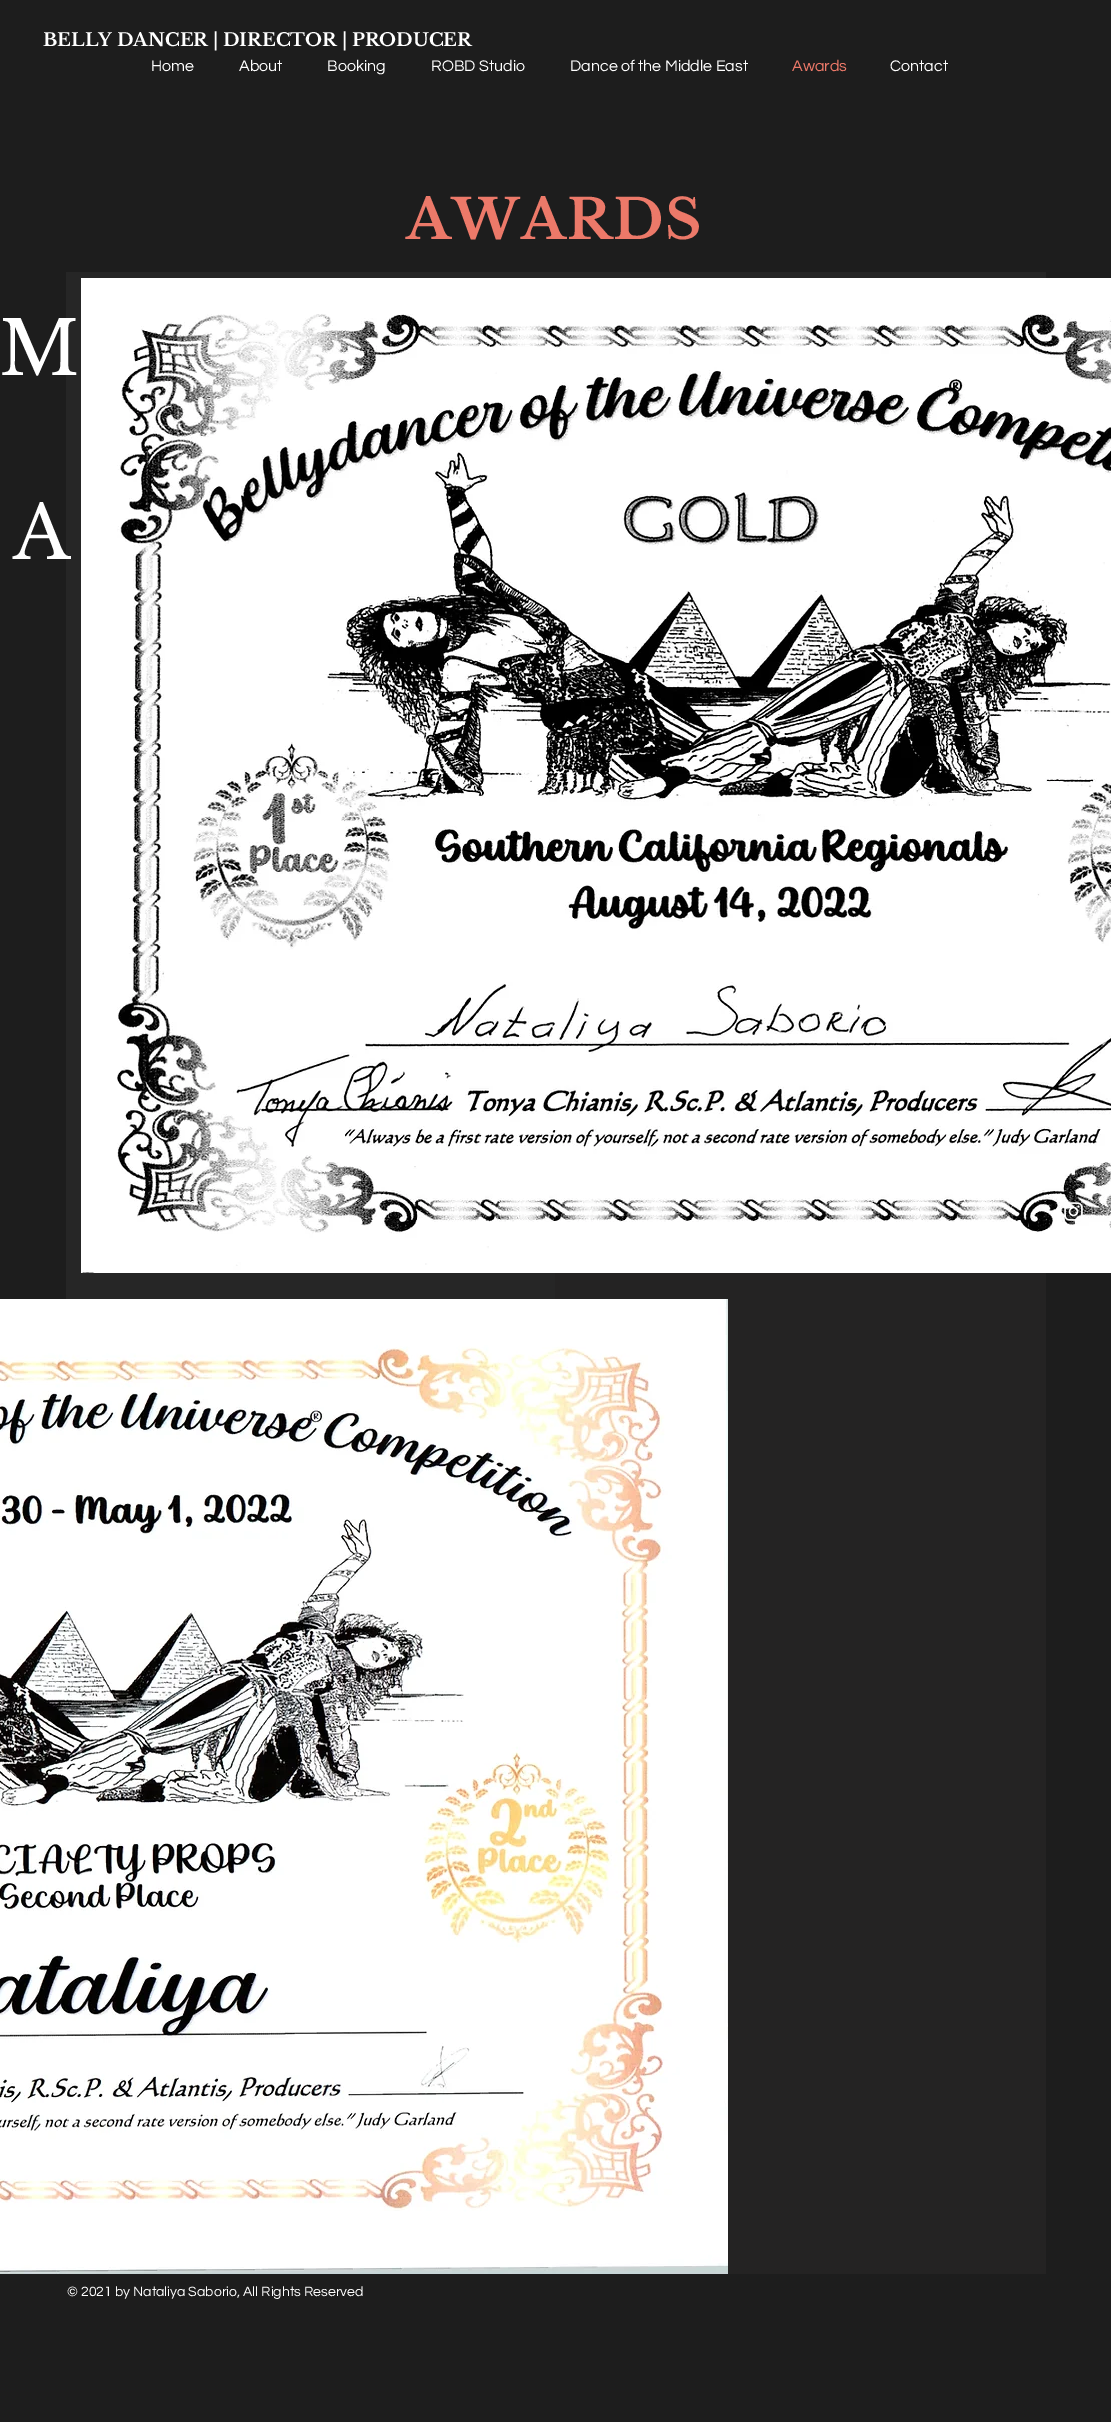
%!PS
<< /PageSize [1111 2422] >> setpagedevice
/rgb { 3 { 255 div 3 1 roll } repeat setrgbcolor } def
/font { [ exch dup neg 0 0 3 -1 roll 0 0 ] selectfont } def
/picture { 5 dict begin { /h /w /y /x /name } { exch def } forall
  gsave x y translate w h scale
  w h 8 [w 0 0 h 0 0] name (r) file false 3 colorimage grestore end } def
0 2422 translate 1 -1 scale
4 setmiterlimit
29 29 29 rgb
0 0 1111 2422 rectfill
38 38 38 rgb
66 272 489 1027 rectfill
555 272 491 6 rectfill
(img/1.rgb) 81 278 1030 995 picture
36 35 35 rgb
555 1273 491 1001 rectfill
(img/2.rgb) 0 1299 728 975 picture
(img/3.rgb) 1071 1169 5 6 picture
(img/4.rgb) 1064 1202 19 19 picture
/LibreBaskerville-Bold 18 font
255 255 255 rgb
43 46 moveto (BELLY DANCER | DIRECTOR | PRODUCER) show
/Questrial-Regular 16 font
[
  [(Home) 151 71]
  [(About) 239 71]
  [(Booking) 327 71]
  [(ROBD Studio) 431 71]
  [(Dance of the Middle East) 570 71]
] { aload pop moveto show } forall
236 121 105 rgb
792 71 moveto (Awards) show
255 255 255 rgb
890 71 moveto (Contact) show
/LibreBaskerville-Bold 55 font
236 121 105 rgb
406 239 moveto 1.5 0 (AWARDS) ashow
/LibreBaskerville-Regular 74 font
255 255 255 rgb
-1 375 moveto (M) show
13 559 moveto (A) show
/Questrial-Regular 14 font
67 2296 moveto (© 2021 by Nataliya Saborio, All Rights Reserved) show
showpage
